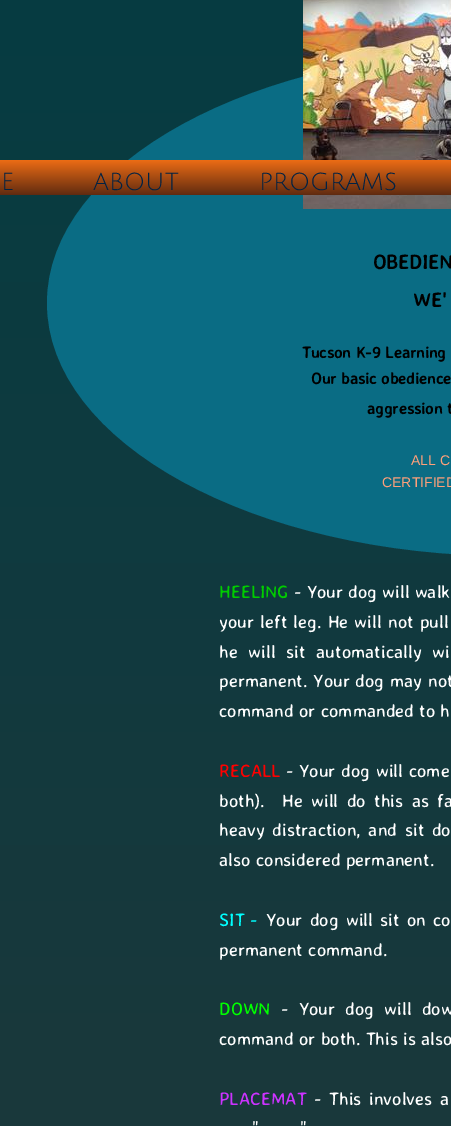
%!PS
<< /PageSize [451 1126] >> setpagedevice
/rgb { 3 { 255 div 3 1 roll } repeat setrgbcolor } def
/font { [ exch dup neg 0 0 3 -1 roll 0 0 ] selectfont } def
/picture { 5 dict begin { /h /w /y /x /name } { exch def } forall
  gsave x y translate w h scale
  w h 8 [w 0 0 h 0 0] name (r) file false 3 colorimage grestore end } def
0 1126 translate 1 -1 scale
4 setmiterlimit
255 255 255 rgb
0 0 451 1126 rectfill
gsave 0 0 moveto 451 0 lineto 451 1126 lineto 0 1126 lineto closepath clip newpath
<< /ShadingType 2 /ColorSpace /DeviceRGB /Coords [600 0 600 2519] /Extend [true true] /Function << /FunctionType 2 /Domain [0 1] /C0 [0.024 0.235 0.259] /C1 [0.2 0.2 0.2] /N 1 >> >> shfill grestore
10 108 132 rgb
510 50 moveto 765.5 50 973 163.5 973 303 curveto 973 442.5 765.5 556 510 556 curveto 254.5 556 47 442.5 47 303 curveto 47 163.5 254.5 50 510 50 curveto closepath fill
(img/1.rgb) 303 0 148 209 picture
gsave 0 160 moveto 451 160 lineto 451 195 lineto 0 195 lineto closepath clip newpath
<< /ShadingType 2 /ColorSpace /DeviceRGB /Coords [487 160 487 195] /Extend [true true] /Function << /FunctionType 2 /Domain [0 1] /C0 [0.929 0.424 0.082] /C1 [0.376 0.169 0.063] /N 1 >> >> shfill grestore
/JuliusSansOne-Regular 24 font
0 34 68 rgb
[
  [(E) 1 190]
  [(ABOUT) 93 190]
  [(PROGRAMS) 259 190]
] { aload pop moveto show } forall
/AveriaSansLibre-Bold 20 font
0 0 0 rgb
373 269 moveto (OBEDIEN) show
413 307 moveto (WE') show
/AveriaSansLibre-Bold 16 font
[
  [(Tucson K-9 Learning) 302 358]
  [(Our basic obedience) 311 384]
  [(aggression t) 367 414]
] { aload pop moveto show } forall
/LiberationSans-Regular 14 font
255 160 122 rgb
411 465 moveto (ALL C) show
382 487 moveto (CERTIFIED) show
/AveriaSansLibre-Regular 18 font
0 204 0 rgb
219 598 moveto (HEELING) show
255 255 255 rgb
294 598 moveto (- Your dog will walk) show
219 628 moveto 1 0 32 (your left leg. He will not pull) widthshow
219 658 moveto 5.5 0 32 (he will sit automatically wi) widthshow
219 687 moveto 0.5 0 32 (permanent. Your dog may not) widthshow
219 717 moveto (command or commanded to h) show
255 0 0 rgb
219 777 moveto (RECALL) show
255 255 255 rgb
286 777 moveto 0.5 0 32 (- Your dog will come) widthshow
219 807 moveto 3.25 0 32 (both\).  He will do this as fa) widthshow
219 836 moveto 2.5 0 32 (heavy distraction, and sit do) widthshow
219 866 moveto (also considered permanent.) show
0 255 255 rgb
219 926 moveto (SIT -) show
255 255 255 rgb
266 926 moveto 2 0 32 (Your dog will sit on co) widthshow
219 956 moveto (permanent command.) show
0 255 0 rgb
219 1015 moveto (DOWN) show
255 255 255 rgb
281 1015 moveto 5 0 32 (- Your dog will dow) widthshow
219 1045 moveto (command or both. This is also) show
204 51 255 rgb
219 1105 moveto (PLACEMAT) show
255 255 255 rgb
314 1105 moveto 2.5 0 32 (- This involves a) widthshow
252 1134 moveto 2 0 32 (") widthshow
300 1134 moveto 2 0 32 (") widthshow
showpage
